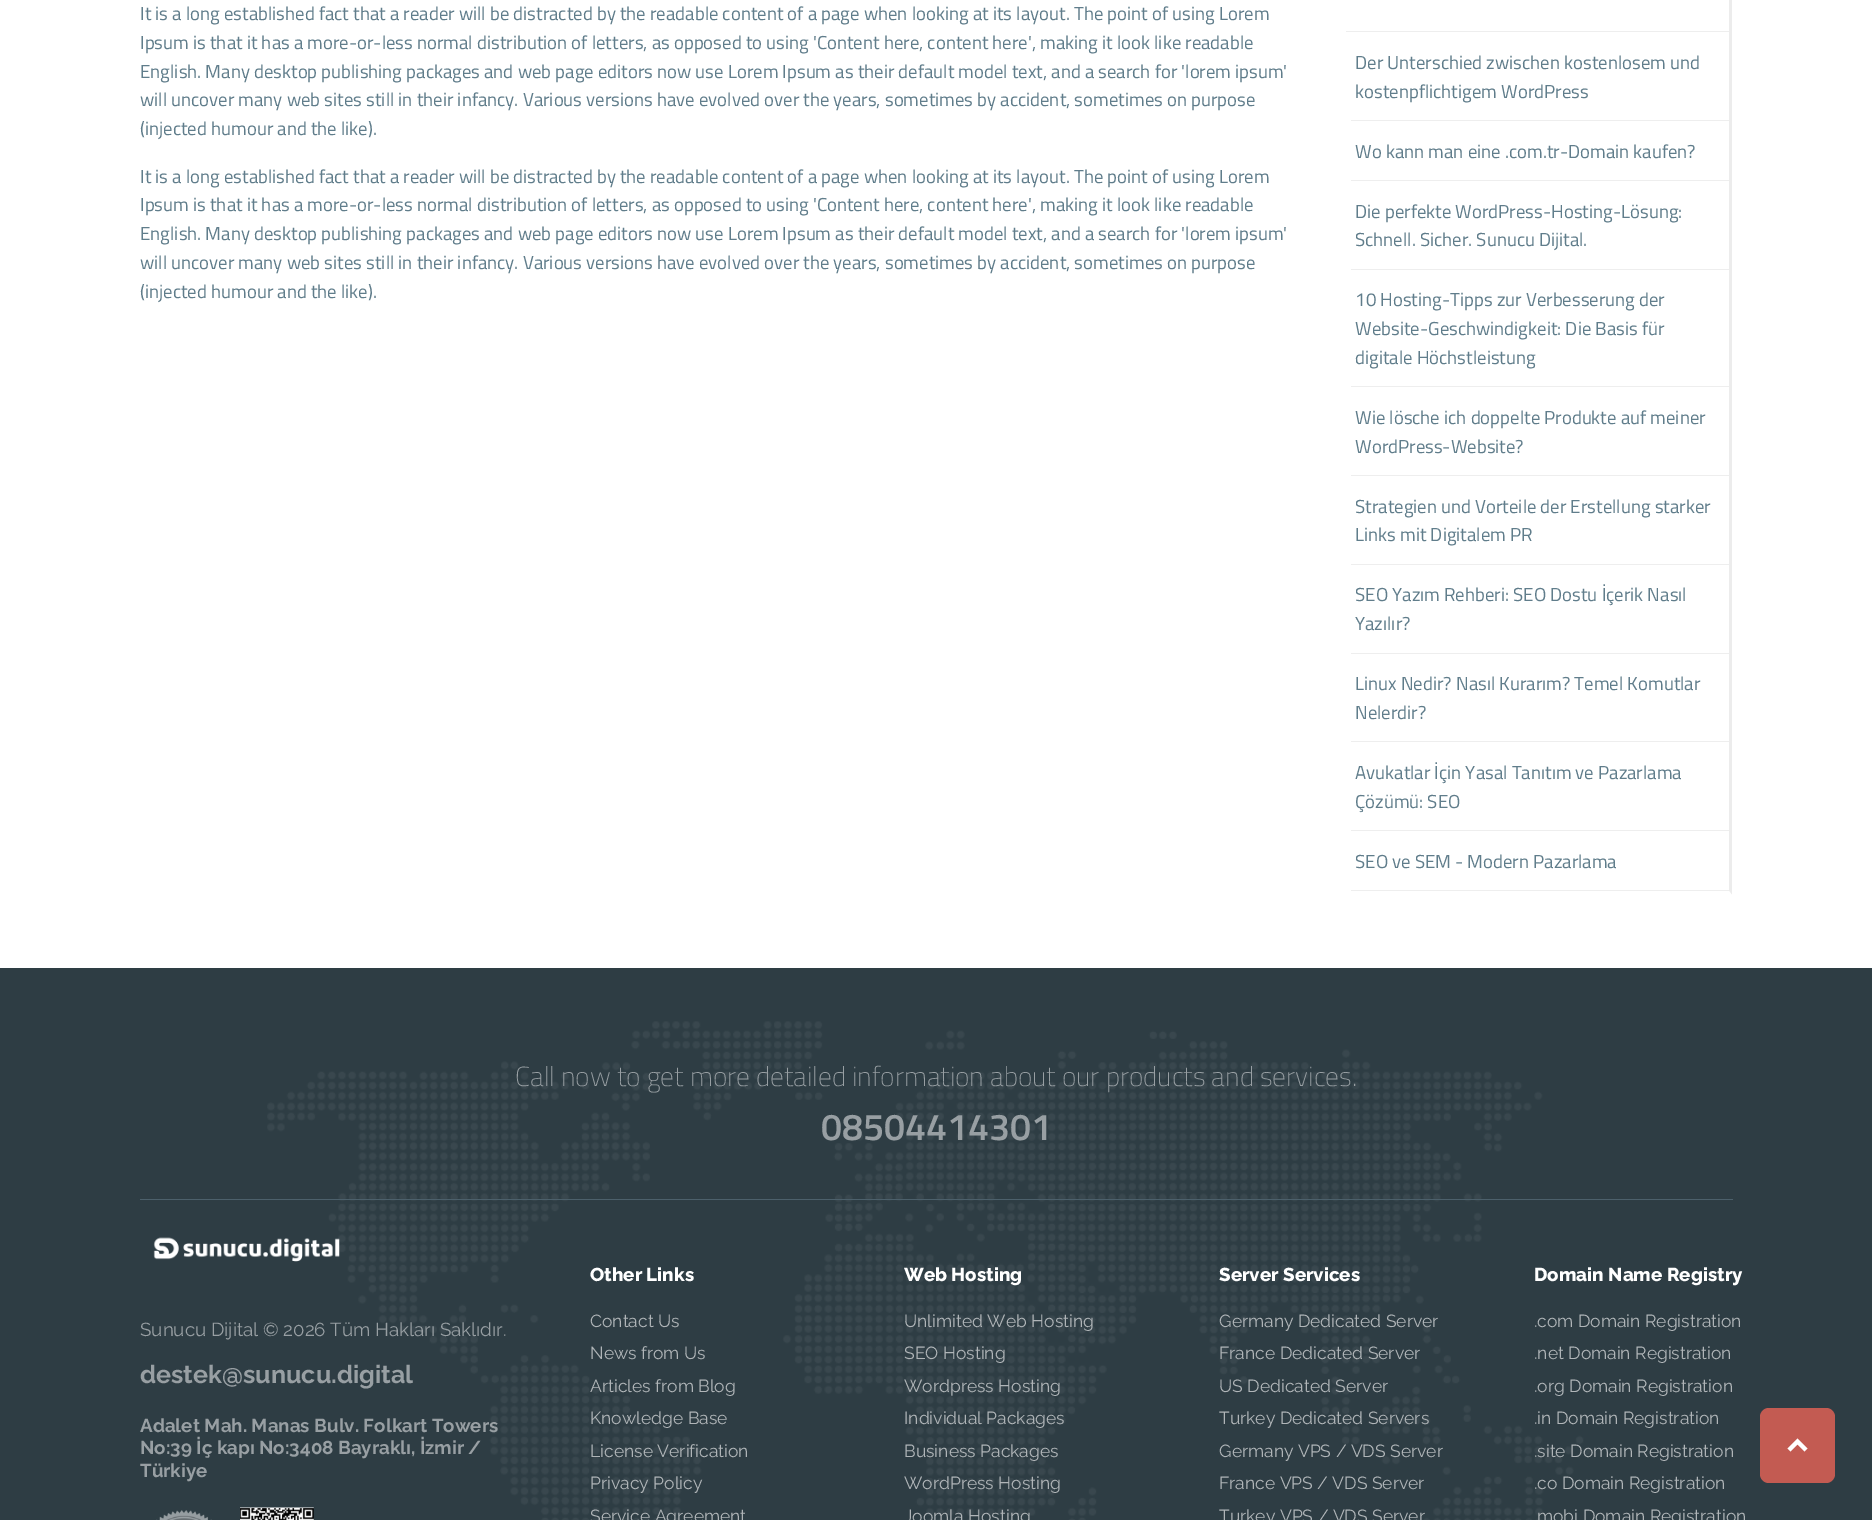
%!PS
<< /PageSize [1872 1520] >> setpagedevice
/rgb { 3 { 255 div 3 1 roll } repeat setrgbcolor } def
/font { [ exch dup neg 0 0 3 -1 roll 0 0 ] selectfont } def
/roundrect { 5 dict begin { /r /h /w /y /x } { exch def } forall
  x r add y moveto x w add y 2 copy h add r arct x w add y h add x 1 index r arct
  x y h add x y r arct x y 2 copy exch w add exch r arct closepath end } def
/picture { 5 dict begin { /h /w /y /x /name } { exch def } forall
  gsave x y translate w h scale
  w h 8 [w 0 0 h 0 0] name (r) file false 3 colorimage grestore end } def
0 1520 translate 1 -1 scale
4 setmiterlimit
255 255 255 rgb
0 0 1872 1520 rectfill
236 236 236 rgb
1732 -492 moveto 1732 895 lineto 1729 891 lineto 1729 -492 lineto closepath fill
255 255 255 rgb
1732 895 moveto 1346 895 lineto 1346 891 lineto 1729 891 lineto closepath fill
[
  [1346 31 383 1 238 238 238]
  [1351 120 378 1 238 238 238]
  [1351 180 378 1 238 238 238]
  [1351 269 378 1 238 238 238]
  [1351 386 378 1 238 238 238]
  [1351 475 378 1 238 238 238]
  [1351 564 378 1 238 238 238]
  [1351 653 378 1 238 238 238]
  [1351 741 378 1 238 238 238]
  [1351 830 378 1 238 238 238]
  [1351 890 378 1 238 238 238]
  [0 968 1872 552 46 61 68]
] { aload pop rgb rectfill } forall
(img/1.rgb) 267 1021 1324 499 picture
76 96 107 rgb
140 1199 1593 1 rectfill
(img/2.rgb) 153 1237 187 25 picture
(img/3.rgb) 156 1510 56 10 picture
(img/4.rgb) 240 1507 74 13 picture
195 91 82 rgb
1760 1408 75 75 9 roundrect fill
255 255 255 rgb
1797.5 1438.5 moveto 1807.5 1448.5 lineto 1804.5 1451.5 lineto 1797.5 1444.5 lineto 1790.5 1451.5 lineto 1787.5 1448.5 lineto closepath fill
/TitilliumWeb-Regular 18.75 font
96 125 139 rgb
[
  [(It is a long established fact that a reader will be distracted by the readable content of a page when looking at its layout. The point of using Lorem) 140 20]
  [(Ipsum is that it has a more-or-less normal distribution of letters, as opposed to using 'Content here, content here', making it look like readable) 140 49]
  [(English. Many desktop publishing packages and web page editors now use Lorem Ipsum as their default model text, and a search for 'lorem ipsum') 140 78]
  [(will uncover many web sites still in their infancy. Various versions have evolved over the years, sometimes by accident, sometimes on purpose) 140 106]
  [(\(injected humour and the like\).) 140 135]
  [(It is a long established fact that a reader will be distracted by the readable content of a page when looking at its layout. The point of using Lorem) 140 183]
  [(Ipsum is that it has a more-or-less normal distribution of letters, as opposed to using 'Content here, content here', making it look like readable) 140 211]
  [(English. Many desktop publishing packages and web page editors now use Lorem Ipsum as their default model text, and a search for 'lorem ipsum') 140 240]
  [(will uncover many web sites still in their infancy. Various versions have evolved over the years, sometimes by accident, sometimes on purpose) 140 269]
  [(\(injected humour and the like\).) 140 298]
  [(Der Unterschied zwischen kostenlosem und) 1355 69]
  [(kostenpflichtigem WordPress) 1355 98]
  [(Wo kann man eine .com.tr-Domain kaufen?) 1355 158]
  [(Die perfekte WordPress-Hosting-Lösung:) 1355 218]
  [(Schnell. Sicher. Sunucu Dijital.) 1355 246]
  [(10 Hosting-Tipps zur Verbesserung der) 1355 306]
  [(Website-Geschwindigkeit: Die Basis für) 1355 335]
  [(digitale Höchstleistung) 1355 364]
  [(Wie lösche ich doppelte Produkte auf meiner) 1355 424]
  [(WordPress-Website?) 1355 453]
  [(Strategien und Vorteile der Erstellung starker) 1355 513]
  [(Links mit Digitalem PR) 1355 541]
  [(SEO Yazım Rehberi: SEO Dostu İçerik Nasıl) 1355 601]
  [(Yazılır?) 1355 630]
  [(Linux Nedir? Nasıl Kurarım? Temel Komutlar) 1355 690]
  [(Nelerdir?) 1355 719]
  [(Avukatlar İçin Yasal Tanıtım ve Pazarlama) 1355 779]
  [(Çözümü: SEO) 1355 808]
  [(SEO ve SEM - Modern Pazarlama) 1355 868]
] { aload pop moveto show } forall
/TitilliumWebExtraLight-ExtraLight 27.5 font
152 159 163 rgb
515 1086 moveto (Call now to get more detailed information about our products and services.) show
/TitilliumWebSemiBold-SemiBold 37.5 font
821 1140 moveto (08504414301) show
/Raleway-Thin 18.75 font
140 1336 moveto (Sunucu Dijital © 2026 Tüm Hakları Saklıdır.) show
/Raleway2-Thin 25 font
140 1383 moveto (destek@sunucu.digital) show
/Raleway2-Thin 18.75 font
[
  [(Adalet Mah. Manas Bulv. Folkart Towers) 140 1432]
  [(No:39 İç kapı No:3408 Bayraklı, İzmir /) 140 1454]
  [(Türkiye) 140 1477]
] { aload pop moveto show } forall
/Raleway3-Thin 18.75 font
255 255 255 rgb
590 1281 moveto (Other Links) show
/Raleway-Thin 17.5 font
176 181 184 rgb
[
  [(Contact Us) 590 1327]
  [(News from Us) 590 1359]
  [(Articles from Blog) 590 1392]
  [(Knowledge Base) 590 1424]
  [(License Verification) 590 1457]
  [(Privacy Policy) 590 1489]
  [(Service Agreement) 590 1522]
] { aload pop moveto show } forall
/Raleway3-Thin 18.75 font
255 255 255 rgb
904 1281 moveto (Web Hosting) show
/Raleway-Thin 17.5 font
176 181 184 rgb
[
  [(Unlimited Web Hosting) 904 1327]
  [(SEO Hosting) 904 1359]
  [(Wordpress Hosting) 904 1392]
  [(Individual Packages) 904 1424]
  [(Business Packages) 904 1457]
  [(WordPress Hosting) 904 1489]
  [(Joomla Hosting) 904 1522]
] { aload pop moveto show } forall
/Raleway3-Thin 18.75 font
255 255 255 rgb
1219 1281 moveto (Server Services) show
/Raleway-Thin 17.5 font
176 181 184 rgb
[
  [(Germany Dedicated Server) 1219 1327]
  [(France Dedicated Server) 1219 1359]
  [(US Dedicated Server) 1219 1392]
  [(Turkey Dedicated Servers) 1219 1424]
  [(Germany VPS / VDS Server) 1219 1457]
  [(France VPS / VDS Server) 1219 1489]
  [(Turkey VPS / VDS Server) 1219 1522]
] { aload pop moveto show } forall
/Raleway3-Thin 18.75 font
255 255 255 rgb
1534 1281 moveto (Domain Name Registry) show
/Raleway-Thin 17.5 font
176 181 184 rgb
[
  [(.com Domain Registration) 1534 1327]
  [(.net Domain Registration) 1534 1359]
  [(.org Domain Registration) 1534 1392]
  [(.in Domain Registration) 1534 1424]
  [(.site Domain Registration) 1534 1457]
  [(.co Domain Registration) 1534 1489]
  [(mobi Domain Registration) 1537 1522]
] { aload pop moveto show } forall
showpage
